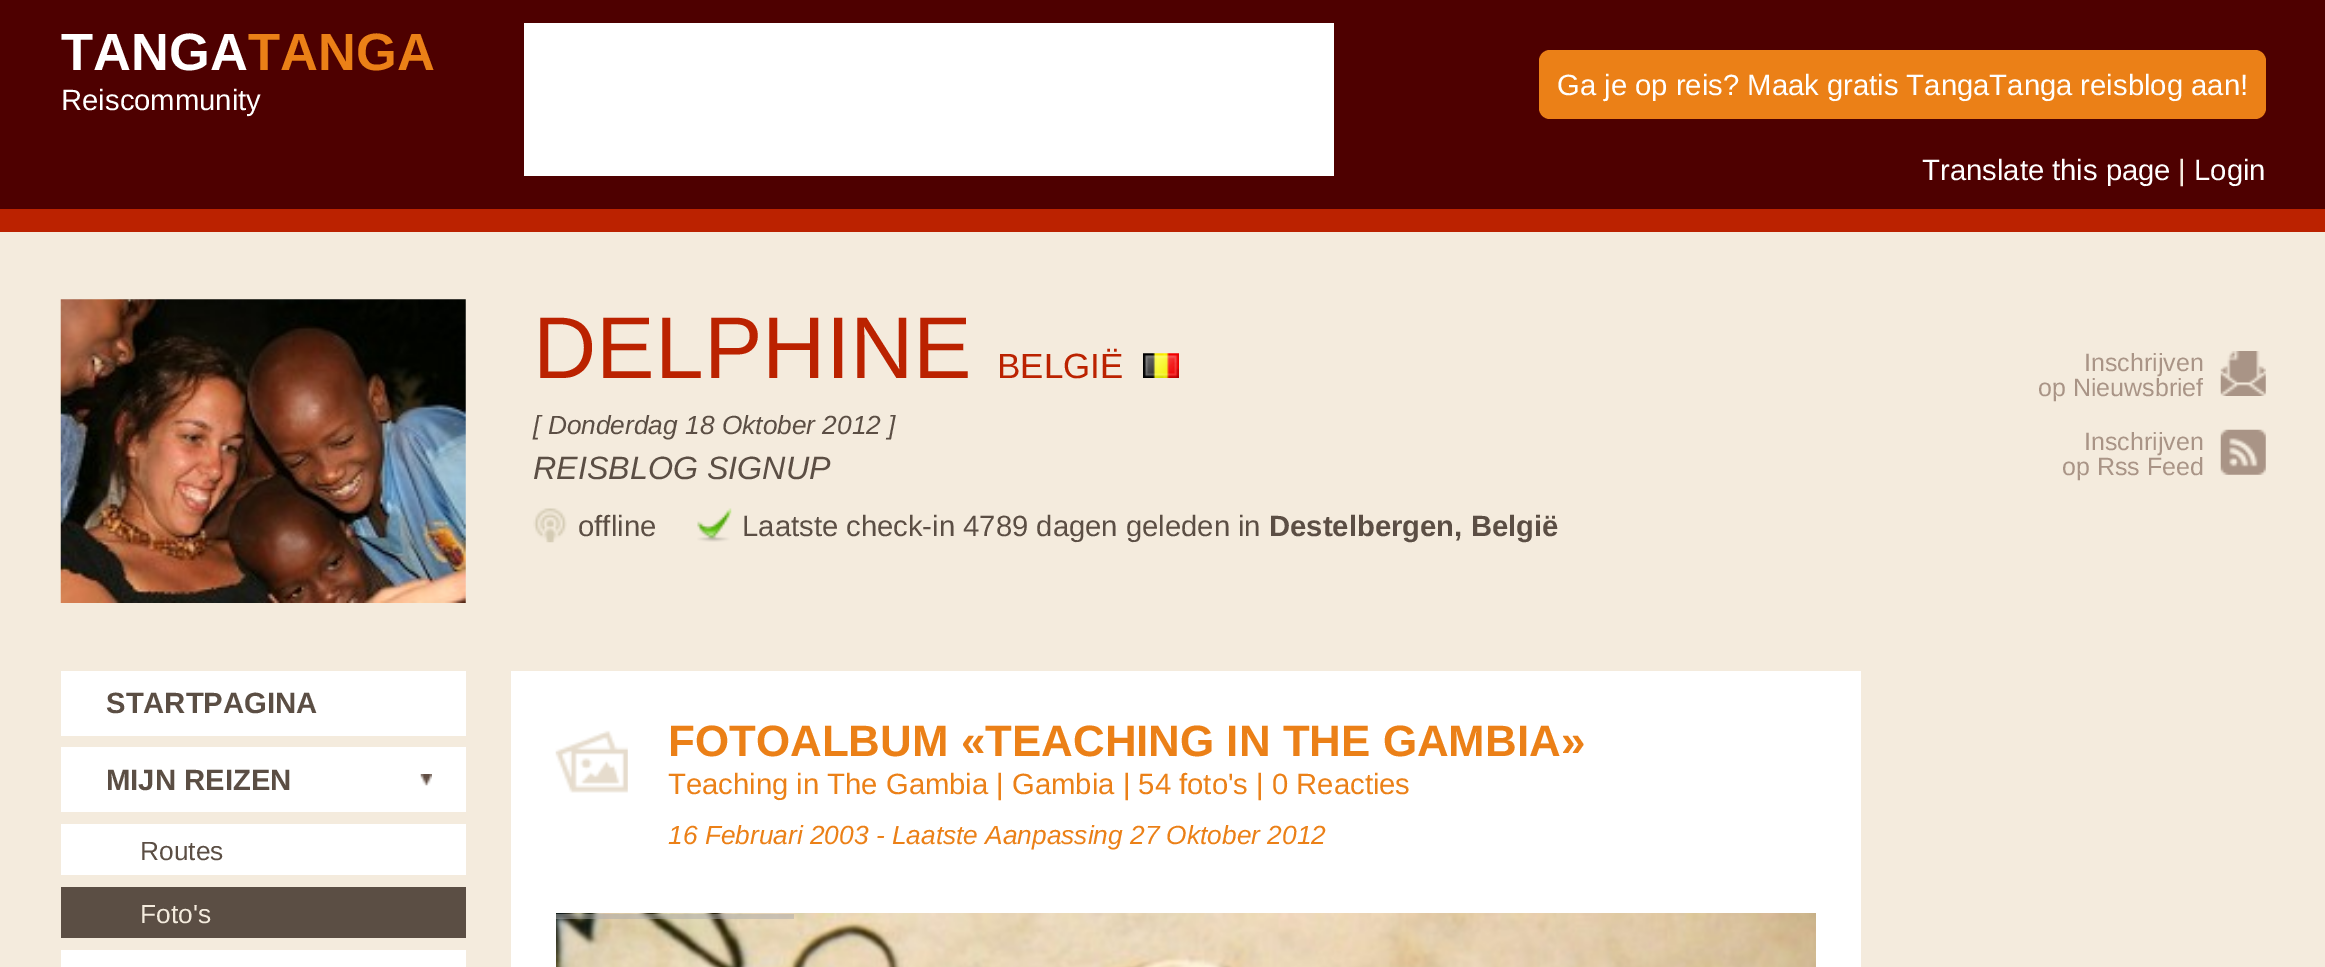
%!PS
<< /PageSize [2325 967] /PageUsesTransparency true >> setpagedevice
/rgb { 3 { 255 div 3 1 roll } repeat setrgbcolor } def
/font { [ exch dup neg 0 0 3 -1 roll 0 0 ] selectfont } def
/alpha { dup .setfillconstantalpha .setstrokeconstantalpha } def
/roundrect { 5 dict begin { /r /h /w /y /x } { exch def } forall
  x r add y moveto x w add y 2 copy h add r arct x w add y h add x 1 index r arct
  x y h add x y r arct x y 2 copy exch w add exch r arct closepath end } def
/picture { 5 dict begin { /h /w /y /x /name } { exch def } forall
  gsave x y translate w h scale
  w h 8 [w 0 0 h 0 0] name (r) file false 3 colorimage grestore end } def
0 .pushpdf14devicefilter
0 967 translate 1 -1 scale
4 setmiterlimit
78 0 0 rgb
0 0 2325 967 rectfill
187 34 0 rgb
0 209 2325 23 rectfill
255 255 255 rgb
524 23 810 153 rectfill
235 128 23 rgb
1539 50 727 69 11 roundrect fill
244 235 221 rgb
0 232 2325 735 rectfill
(img/1.rgb) 60 299 406 304 picture
(img/2.rgb) 1143 353 36 25 picture
(img/3.rgb) 533 508 34 35 picture
(img/4.rgb) 697 508 35 34 picture
(img/5.rgb) 2220 351 46 45 picture
(img/6.rgb) 2220 429 46 46 picture
255 255 255 rgb
61 671 405 65 rectfill
61 747 405 65 rectfill
(img/7.rgb) 420 774 12 12 picture
[
  [61 824 405 51 255 255 255]
  [61 887 405 51 91 78 68]
  [61 950 405 17 255 255 255]
  [511 671 1350 296 255 255 255]
] { aload pop rgb rectfill } forall
(img/8.rgb) 555 730 73 63 picture
(img/9.rgb) 556 913 1260 54 picture
0.5 alpha
170 170 170 rgb
556 914 238 5 rectfill
/LiberationSans-Bold 52.5 font
1 alpha
255 255 255 rgb
61 70 moveto (TANGA) show
235 128 23 rgb
248 70 moveto (TANGA) show
/LiberationSans-Regular 29.25 font
255 255 255 rgb
[
  [(Reiscommunity) 61 110]
  [(Ga je op reis? Maak gratis TangaTanga reisblog aan!) 1557 95]
  [(Translate this page) 1922 180]
] { aload pop moveto show } forall
244 235 221 rgb
2178 180 moveto (|) show
255 255 255 rgb
2194 180 moveto (Login) show
/LiberationSans-Regular 87.75 font
187 34 0 rgb
533 378 moveto (DELPHINE) show
/LiberationSans-Regular 35 font
997 378 moveto (BELGIË) show
/LiberationSans-Italic 26.3 font
91 78 68 rgb
533 434 moveto ([ Donderdag 18 Oktober 2012 ]) show
/LiberationSans-Italic 32.25 font
533 479 moveto (REISBLOG SIGNUP) show
/LiberationSans-Regular 29.25 font
578 536 moveto (offline) show
742 536 moveto (Laatste check-in 4789 dagen geleden in) show
/LiberationSans-Bold 29.25 font
1269 536 moveto (Destelbergen, België) show
/LiberationSans-Regular 25 font
169 148 134 rgb
[
  [(Inschrijven) 2084 371]
  [(op Nieuwsbrief) 2038 396]
  [(Inschrijven) 2084 450]
  [(op Rss Feed) 2062 475]
] { aload pop moveto show } forall
/LiberationSans-Bold 29.25 font
91 78 68 rgb
106 713 moveto (STARTPAGINA) show
106 790 moveto (MIJN REIZEN) show
/LiberationSans-Regular 26.3 font
140 860 moveto (Routes) show
244 235 221 rgb
140 923 moveto (Foto's) show
/LiberationSans-Bold 43.9 font
235 128 23 rgb
668 756 moveto (FOTOALBUM «TEACHING IN THE GAMBIA») show
/LiberationSans-Regular 29.25 font
668 794 moveto (Teaching in The Gambia | Gambia | 54 foto's | 0 Reacties) show
/LiberationSans-Italic 26.3 font
668 844 moveto (16 Februari 2003 - Laatste Aanpassing 27 Oktober 2012) show
.poppdf14devicefilter showpage
